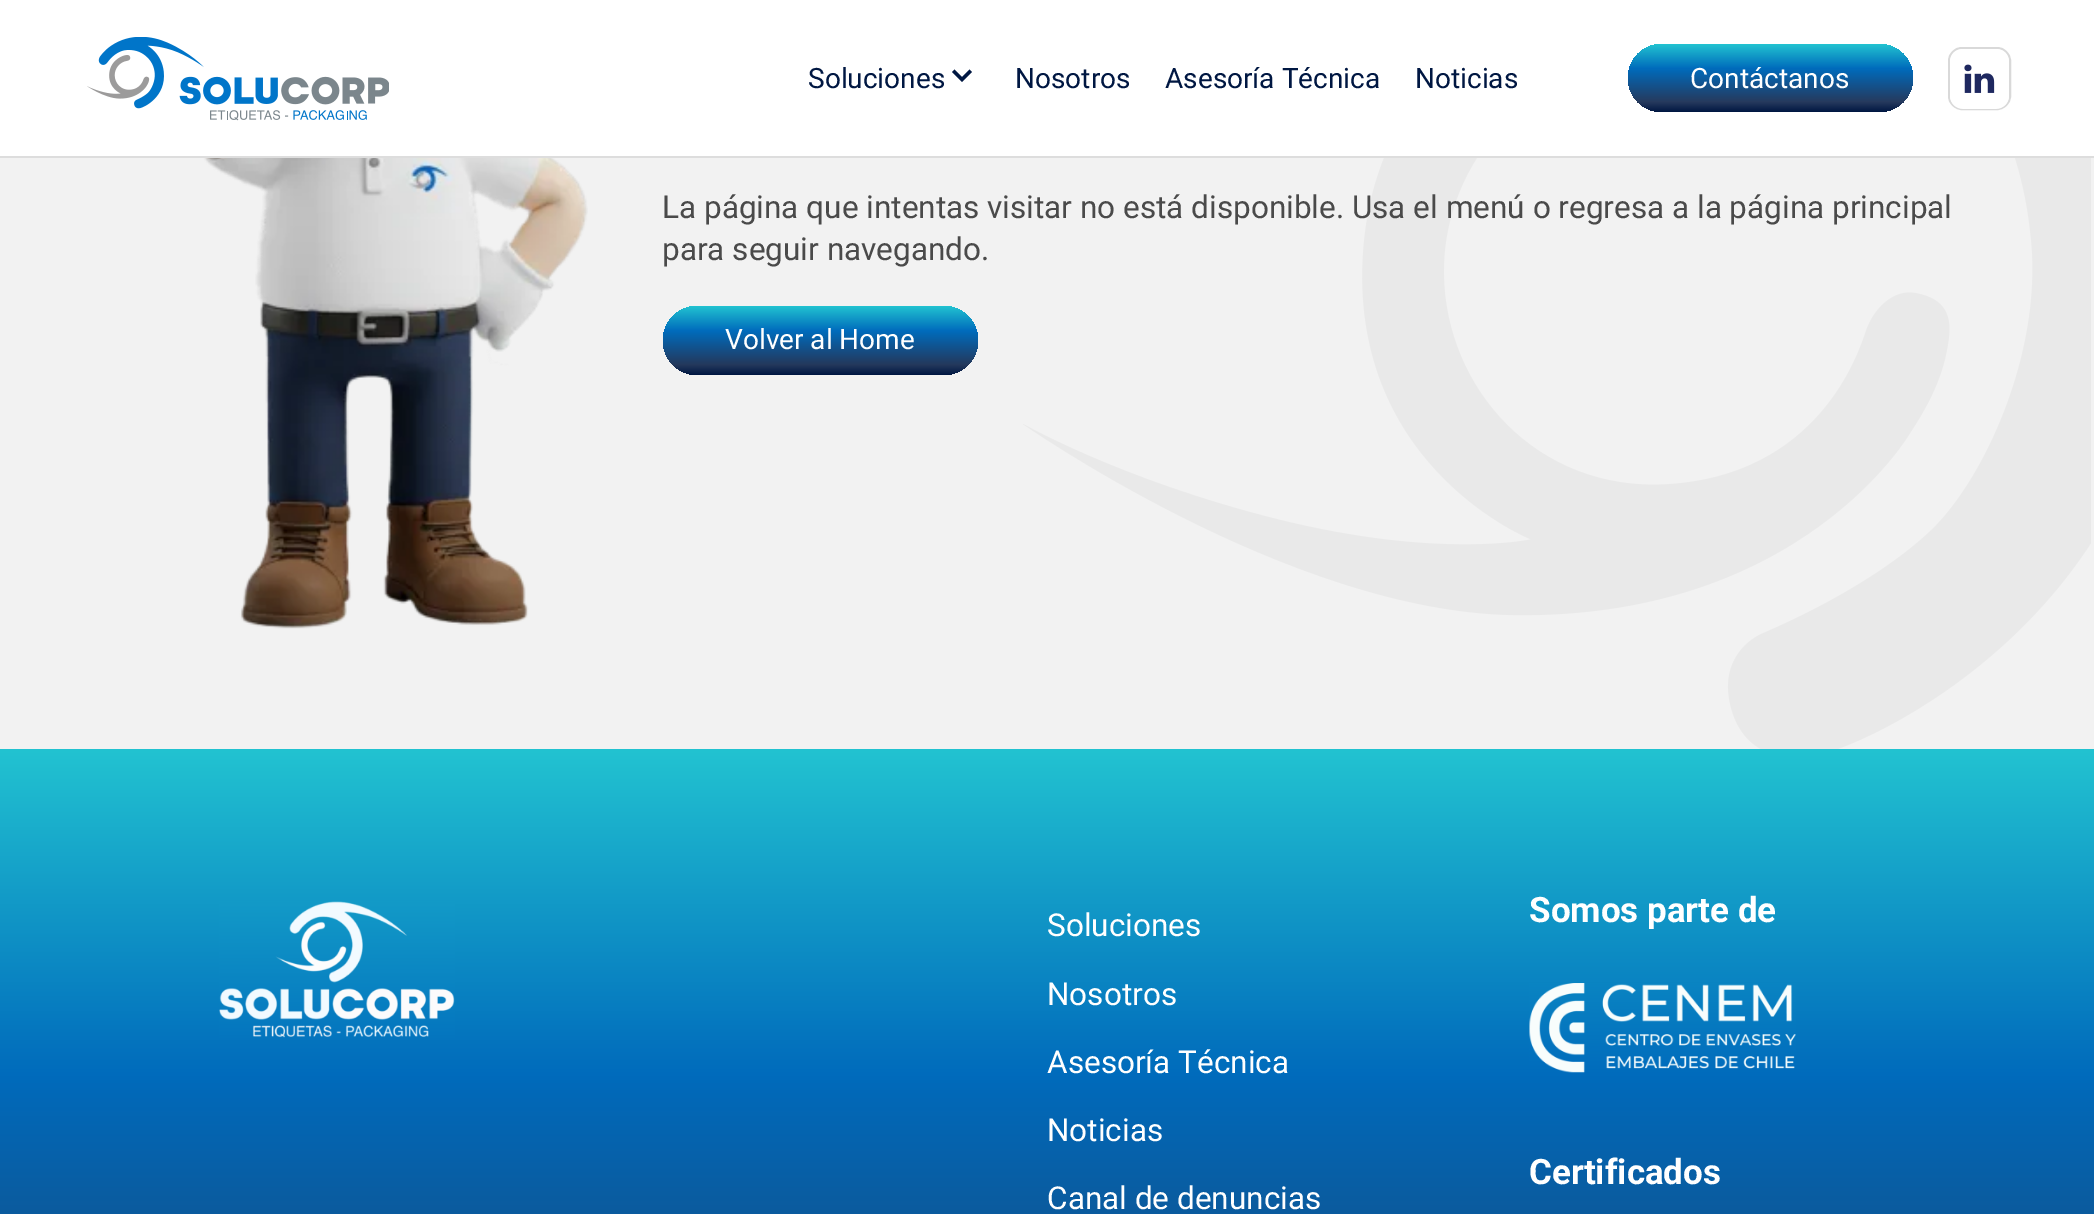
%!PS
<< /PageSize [2094 1214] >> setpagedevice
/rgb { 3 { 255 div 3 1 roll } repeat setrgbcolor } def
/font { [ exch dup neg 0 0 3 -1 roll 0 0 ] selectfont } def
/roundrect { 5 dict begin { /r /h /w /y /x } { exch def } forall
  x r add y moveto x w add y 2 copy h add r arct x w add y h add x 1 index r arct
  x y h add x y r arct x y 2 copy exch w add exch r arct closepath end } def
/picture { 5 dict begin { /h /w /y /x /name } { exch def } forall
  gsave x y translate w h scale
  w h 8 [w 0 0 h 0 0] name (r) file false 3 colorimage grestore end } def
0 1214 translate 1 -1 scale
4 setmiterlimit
242 242 242 rgb
0 0 2094 1214 rectfill
255 255 255 rgb
0 0 2094 156 rectfill
221 221 221 rgb
0 156 2094 2 rectfill
(img/1.rgb) 87 37 302 84 picture
0 23 66 rgb
952 72 moveto 962 82 lineto 972 72 lineto 969.5 69.5 lineto 962 77 lineto 954.5 69.5 lineto closepath fill
gsave 1628 44 285 68 34 roundrect clip newpath
<< /ShadingType 2 /ColorSpace /DeviceRGB /Coords [1770 44 1770 112] /Extend [true true] /Function << /FunctionType 3 /Domain [0 1] /Functions [<< /FunctionType 2 /Domain [0 1] /C0 [0.133 0.765 0.82] /C1 [0 0.42 0.737] /N 1 >> << /FunctionType 2 /Domain [0 1] /C0 [0 0.42 0.737] /C1 [0.149 0.227 0.369] /N 1 >> << /FunctionType 2 /Domain [0 1] /C0 [0.149 0.227 0.369] /C1 [0 0.09 0.259] /N 1 >>] /Bounds [0.36 0.85] /Encode [0 1 0 1 0 1] >> >> shfill grestore
217 217 217 rgb
2 setlinewidth
1949 48 61 61 13 roundrect stroke
(img/2.rgb) 1950 49 59 60 picture
(img/3.rgb) 1023 158 1068 591 picture
(img/4.rgb) 203 158 385 471 picture
gsave 663 306 315 69 34.5 roundrect clip newpath
<< /ShadingType 2 /ColorSpace /DeviceRGB /Coords [821 306 821 375] /Extend [true true] /Function << /FunctionType 3 /Domain [0 1] /Functions [<< /FunctionType 2 /Domain [0 1] /C0 [0.133 0.765 0.82] /C1 [0 0.42 0.737] /N 1 >> << /FunctionType 2 /Domain [0 1] /C0 [0 0.42 0.737] /C1 [0.141 0.22 0.361] /N 1 >> << /FunctionType 2 /Domain [0 1] /C0 [0.141 0.22 0.361] /C1 [0 0.09 0.259] /N 1 >>] /Bounds [0.36 0.85] /Encode [0 1 0 1 0 1] >> >> shfill grestore
gsave 0 749 moveto 2094 749 lineto 2094 1214 lineto 0 1214 lineto closepath clip newpath
<< /ShadingType 2 /ColorSpace /DeviceRGB /Coords [1047 749 1047 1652] /Extend [true true] /Function << /FunctionType 3 /Domain [0 1] /Functions [<< /FunctionType 2 /Domain [0 1] /C0 [0.133 0.765 0.82] /C1 [0 0.42 0.737] /N 1 >> << /FunctionType 2 /Domain [0 1] /C0 [0 0.42 0.737] /C1 [0.141 0.22 0.361] /N 1 >> << /FunctionType 2 /Domain [0 1] /C0 [0.141 0.22 0.361] /C1 [0 0.09 0.259] /N 1 >>] /Bounds [0.36 0.85] /Encode [0 1 0 1 0 1] >> >> shfill grestore
(img/5.rgb) 219 901 236 137 picture
(img/6.rgb) 1529 983 267 90 picture
/Roboto-Regular 28 font
0 23 66 rgb
[
  [(Soluciones) 808 88]
  [(Nosotros) 1015 88]
  [(Asesoría Técnica) 1165 88]
  [(Noticias) 1415 88]
] { aload pop moveto show } forall
255 255 255 rgb
1690 88 moveto (Contáctanos) show
/Roboto-Regular 31.5 font
74 74 74 rgb
662 218 moveto (La página que intentas visitar no está disponible. Usa el menú o regresa a la página principal) show
662 260 moveto (para seguir navegando.) show
/Roboto-Regular 28 font
255 255 255 rgb
725 349 moveto (Volver al Home) show
/Roboto-Regular 31.5 font
[
  [(Soluciones) 1047 936]
  [(Nosotros) 1047 1005]
  [(Asesoría Técnica) 1047 1073]
  [(Noticias) 1047 1141]
  [(Canal de denuncias) 1047 1209]
] { aload pop moveto show } forall
/Roboto-Bold 35 font
1529 922 moveto (Somos parte de) show
1529 1184 moveto (Certificados) show
showpage
